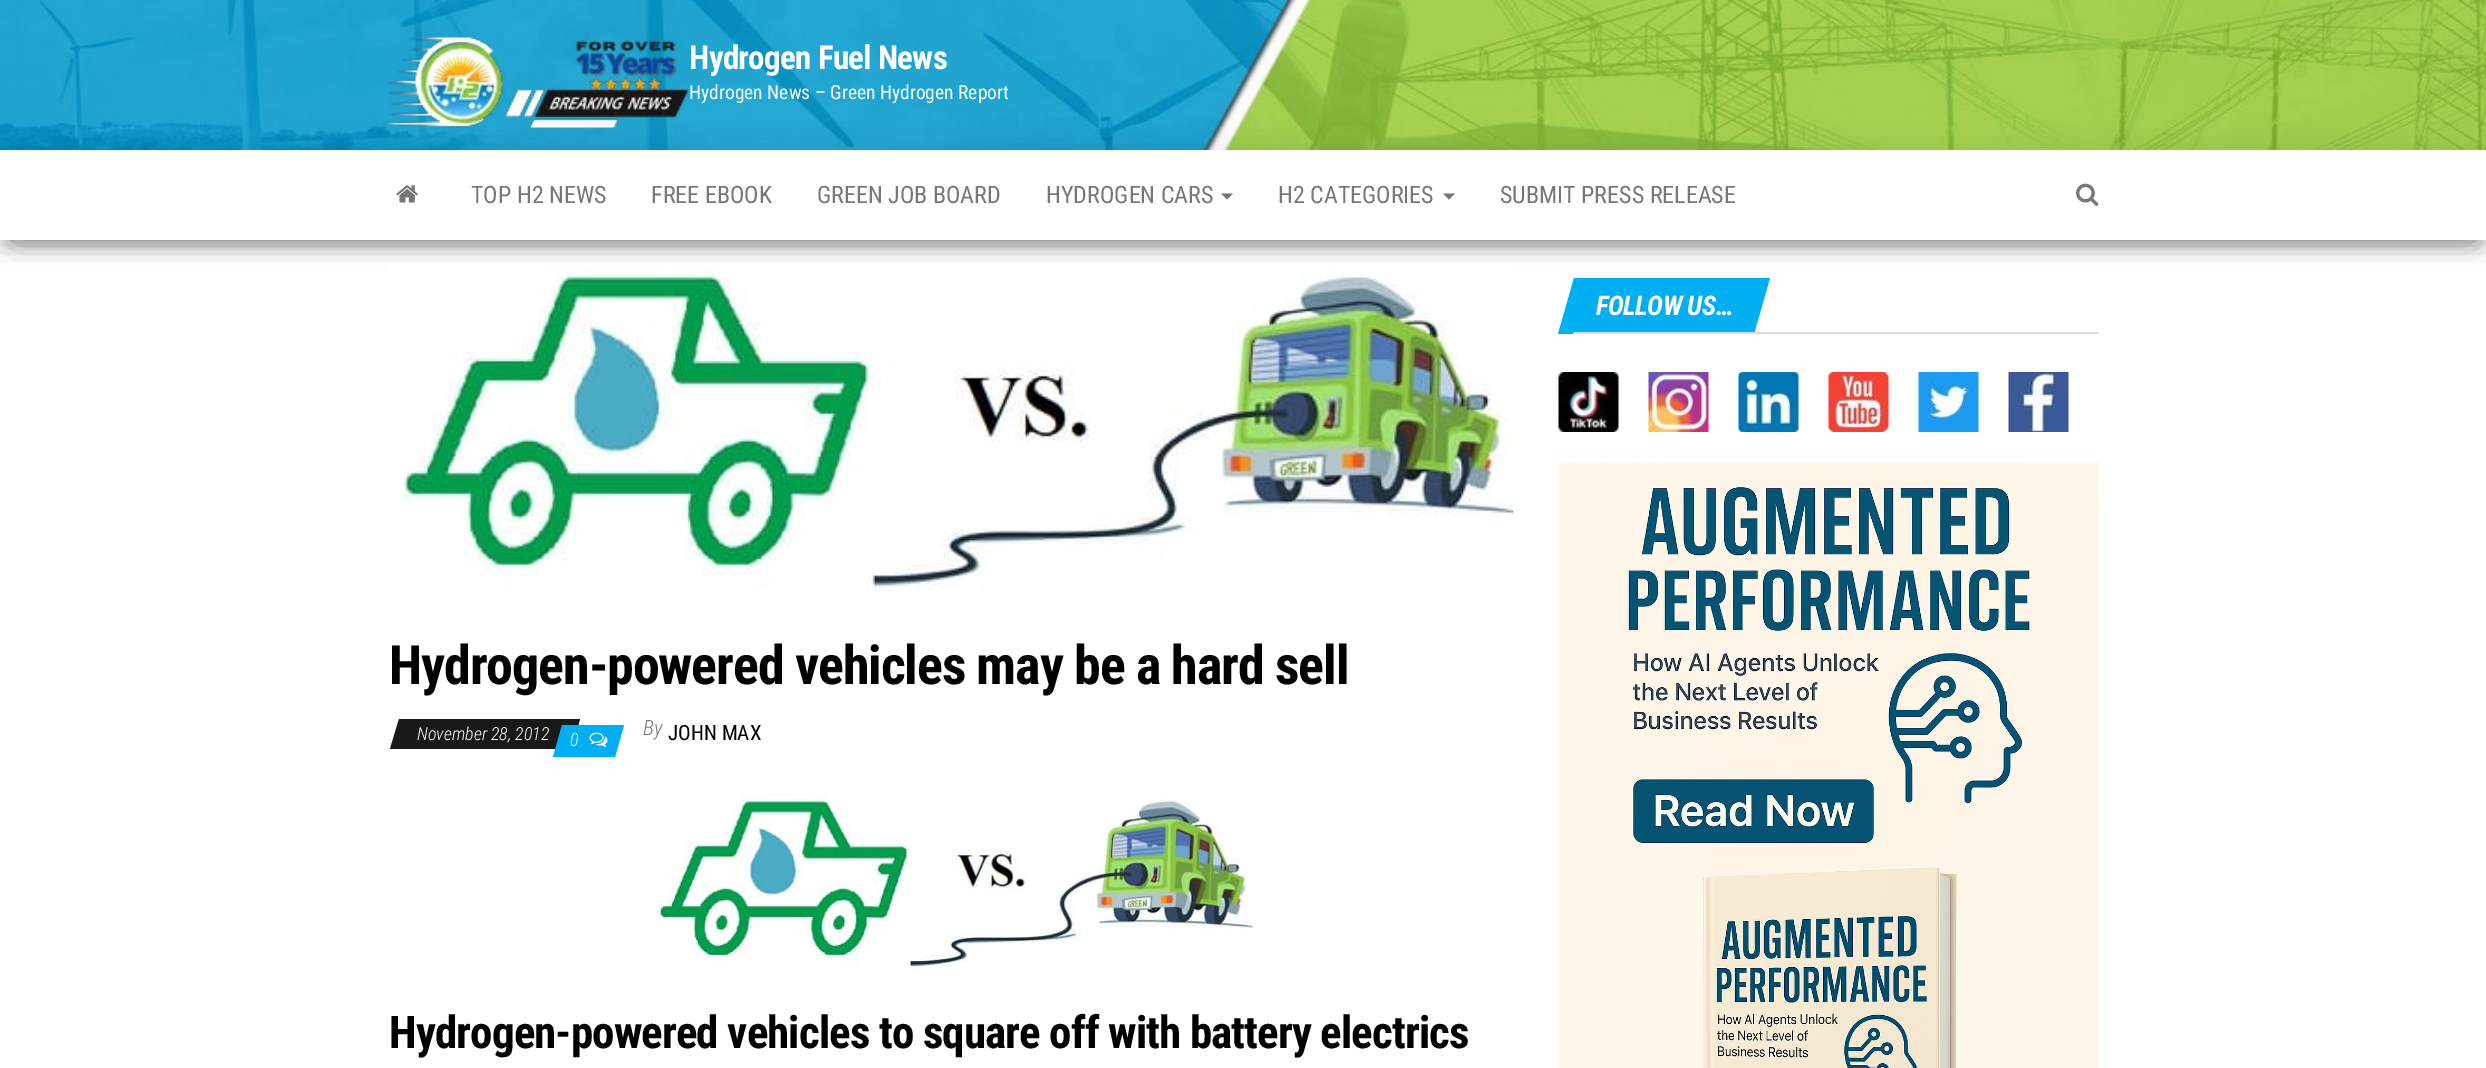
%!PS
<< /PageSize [2486 1068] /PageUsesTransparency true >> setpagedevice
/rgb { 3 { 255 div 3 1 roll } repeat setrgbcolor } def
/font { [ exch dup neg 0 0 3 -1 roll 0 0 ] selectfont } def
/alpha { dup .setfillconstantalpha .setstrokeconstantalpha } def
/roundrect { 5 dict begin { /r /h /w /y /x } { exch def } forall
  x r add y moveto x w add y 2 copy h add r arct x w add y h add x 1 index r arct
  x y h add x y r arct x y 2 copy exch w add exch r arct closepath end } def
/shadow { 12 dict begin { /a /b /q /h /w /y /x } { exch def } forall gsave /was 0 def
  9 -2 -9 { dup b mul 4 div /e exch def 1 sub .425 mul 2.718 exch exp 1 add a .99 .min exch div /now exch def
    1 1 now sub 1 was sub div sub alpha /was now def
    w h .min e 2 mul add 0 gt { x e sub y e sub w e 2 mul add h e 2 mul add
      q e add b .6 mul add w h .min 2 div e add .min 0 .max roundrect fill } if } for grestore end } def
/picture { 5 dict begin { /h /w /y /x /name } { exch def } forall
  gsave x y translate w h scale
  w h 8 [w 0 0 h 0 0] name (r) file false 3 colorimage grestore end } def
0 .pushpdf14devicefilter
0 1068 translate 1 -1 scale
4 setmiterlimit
255 255 255 rgb
0 0 2486 1068 rectfill
(img/1.rgb) 0 0 2486 150 picture
gsave
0 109 moveto 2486 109 lineto 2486 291 lineto 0 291 lineto closepath 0 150 moveto 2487 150 lineto 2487 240 lineto 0 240 lineto closepath eoclip newpath
0 0 0 rgb
0 155 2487 90 0 15 0.12 shadow
grestore
(img/2.rgb) 388 37 301 91 picture
gsave
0 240 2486 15 rectclip
0 0 0 rgb
8 170 2472 75 0 7.5 0.2 shadow
grestore
gsave
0 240 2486 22 rectclip
0 0 0 rgb
18 183 2451 54 0 15 0.42 shadow
grestore
(img/3.rgb) 396 185 22 18 picture
119 119 119 rgb
1221 193.5 moveto 1233 193.5 lineto 1227 199.5 lineto closepath fill
1443 193.5 moveto 1455 193.5 lineto 1449 199.5 lineto closepath fill
(img/4.rgb) 2076 183 23 23 picture
0 175 242 rgb
1574 278 moveto 1770 278 lineto 1754 334 lineto 1558 334 lineto closepath fill
221 221 221 rgb
1574 332 moveto 2099 332 lineto 2098 334 lineto 1573 334 lineto closepath fill
(img/5.rgb) 1558 372 61 60 picture
(img/6.rgb) 1648 372 61 60 picture
(img/7.rgb) 1738 372 61 60 picture
(img/8.rgb) 1828 372 61 60 picture
(img/9.rgb) 1918 372 61 60 picture
(img/10.rgb) 2008 372 61 60 picture
(img/11.rgb) 1558 462 541 606 picture
(img/12.rgb) 389 262 1125 329 picture
25 25 25 rgb
399 719 moveto 580 719 lineto 572 749 lineto 390 749 lineto closepath fill
0 175 242 rgb
562 725 moveto 624 725 lineto 615 757 lineto 553 757 lineto closepath fill
(img/13.rgb) 589 732 19 15 picture
(img/14.rgb) 651 793 602 176 picture
/RobotoCondensed-Bold 33 font
255 255 255 rgb
689 69 moveto -0.7 0 (Hydrogen Fuel News) ashow
/RobotoCondensed-Regular 19.5 font
689 99 moveto (Hydrogen News – Green Hydrogen Report) show
/RobotoCondensed-Regular 24 font
119 119 119 rgb
[
  [(TOP H2 NEWS) 471 203]
  [(FREE EBOOK) 651 203]
  [(GREEN JOB BOARD) 817 203]
  [(HYDROGEN CARS) 1046 203]
  [(H2 CATEGORIES) 1278 203]
  [(SUBMIT PRESS RELEASE) 1500 203]
] { aload pop moveto show } forall
/RobotoCondensed-BoldItalic 27 font
255 255 255 rgb
1596 315 moveto -0.5 0 (FOLLOW US…) ashow
/RobotoCondensed-Bold 54 font
0 0 0 rgb
389 684 moveto -1.1 0 (Hydrogen-powered vehicles may be a hard sell) ashow
/RobotoCondensed-LightItalic 18 font
255 255 255 rgb
417 740 moveto (November 28, 2012) show
570 746 moveto (0) show
/RobotoCondensed-LightItalic 21 font
119 119 119 rgb
643 735 moveto (By) show
/RobotoCondensed-Regular 21 font
0 0 0 rgb
668 740 moveto (JOHN MAX) show
/RobotoCondensed-Bold 45 font
389 1048 moveto -0.9 0 (Hydrogen-powered vehicles to square off with battery electrics) ashow
.poppdf14devicefilter showpage
